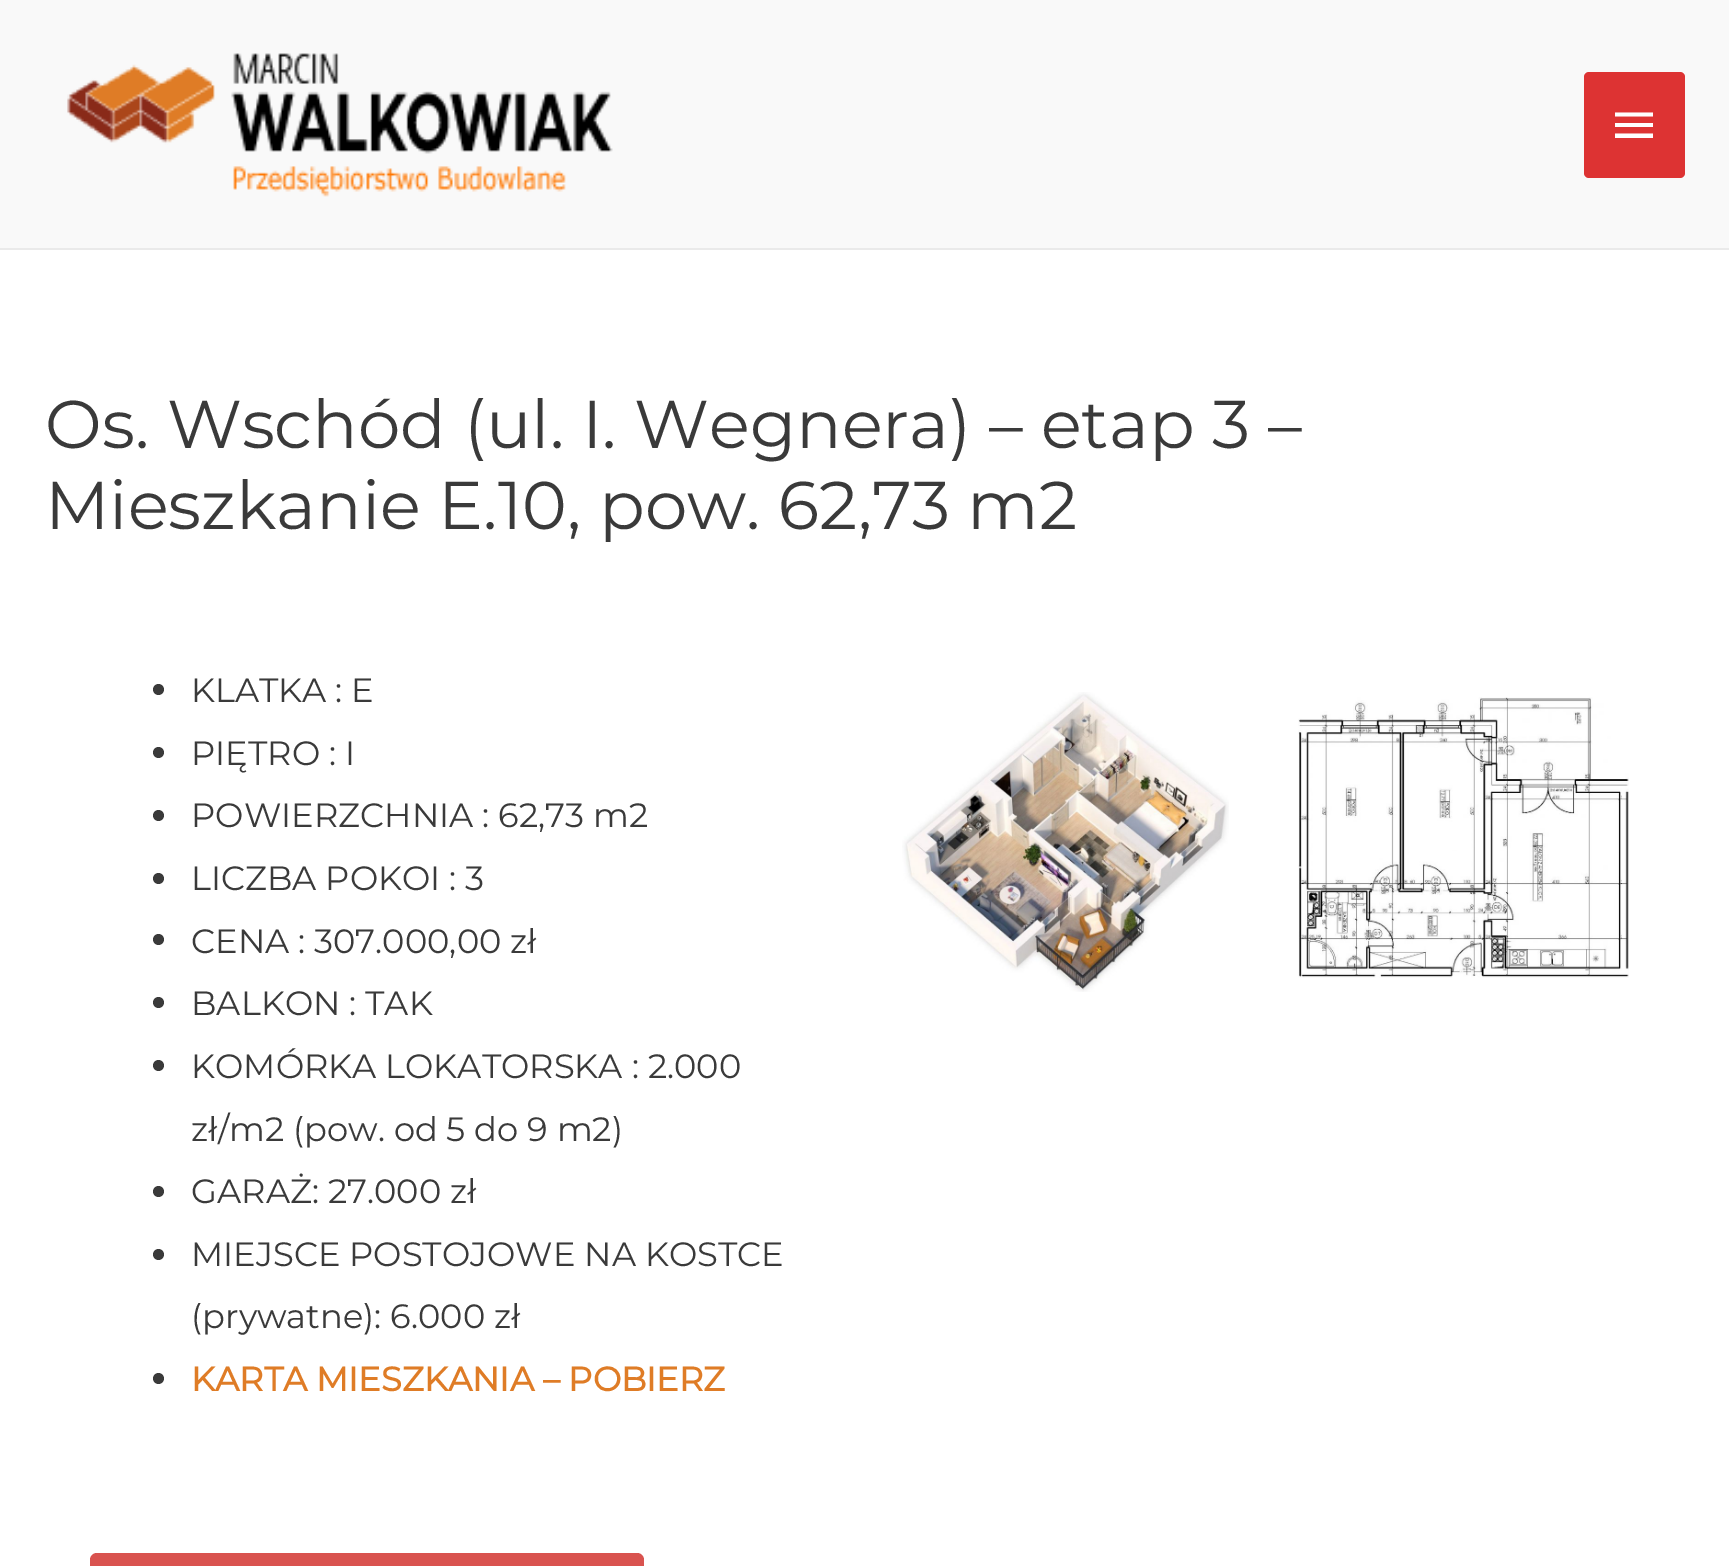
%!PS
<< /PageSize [1729 1566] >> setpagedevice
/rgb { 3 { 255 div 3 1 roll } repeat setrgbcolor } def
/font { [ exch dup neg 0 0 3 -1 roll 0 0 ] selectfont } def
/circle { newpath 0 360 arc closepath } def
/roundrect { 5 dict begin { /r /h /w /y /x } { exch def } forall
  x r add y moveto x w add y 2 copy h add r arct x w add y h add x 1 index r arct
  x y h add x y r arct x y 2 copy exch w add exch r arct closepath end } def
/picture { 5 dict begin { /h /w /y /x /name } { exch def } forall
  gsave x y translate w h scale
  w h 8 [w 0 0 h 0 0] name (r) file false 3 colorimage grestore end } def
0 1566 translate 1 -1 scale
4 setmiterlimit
255 255 255 rgb
0 0 1729 1566 rectfill
234 234 234 rgb
0 248 1729 2 rectfill
249 249 249 rgb
0 0 1729 248 rectfill
(img/1.rgb) 67 53 546 144 picture
221 51 51 rgb
1584 72 101 106 5 roundrect fill
255 255 255 rgb
1615 112.5 moveto 1653 112.5 lineto 1653 116.5 lineto 1615 116.5 lineto closepath 1615 127 moveto 1615 123 lineto 1653 123 lineto 1653 127 lineto closepath 1615 138 moveto 1615 133.5 lineto 1653 133.5 lineto 1653 138 lineto closepath fill
58 58 58 rgb
158.5 689.5 5.5 circle fill
158.5 752.5 5.5 circle fill
158.5 815.5 5.5 circle fill
158.5 878.5 5.5 circle fill
158.5 939.5 5.5 circle fill
158.5 1002.5 5.5 circle fill
158.5 1065.5 5.5 circle fill
158.5 1191.5 5.5 circle fill
158.5 1254.5 5.5 circle fill
158.5 1378.5 5.5 circle fill
(img/2.rgb) 902 692 327 300 picture
(img/3.rgb) 1298 697 331 281 picture
217 83 79 rgb
90 1553 554 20 7 roundrect fill
/Montserrat-Thin 67.5 font
58 58 58 rgb
45 448 moveto (Os. Wschód \(ul. I. Wegnera\) – etap 3 –) show
45 529 moveto (Mieszkanie E.10, pow. 62,73 m2) show
/Montserrat-Thin 33.75 font
[
  [(KLATKA : E) 191 702]
  [(PIĘTRO : I) 191 765]
  [(POWIERZCHNIA : 62,73 m2) 191 827]
  [(LICZBA POKOI : 3) 191 890]
  [(CENA : 307.000,00 zł) 191 953]
  [(BALKON : TAK) 191 1015]
  [(KOMÓRKA LOKATORSKA : 2.000) 191 1078]
  [(zł/m2 \(pow. od 5 do 9 m2\)) 191 1141]
  [(GARAŻ: 27.000 zł) 191 1203]
  [(MIEJSCE POSTOJOWE NA KOSTCE) 191 1266]
  [(\(prywatne\): 6.000 zł) 191 1328]
] { aload pop moveto show } forall
/Montserrat-Bold 33.75 font
223 124 38 rgb
191 1391 moveto (KARTA MIESZKANIA – POBIERZ) show
showpage
